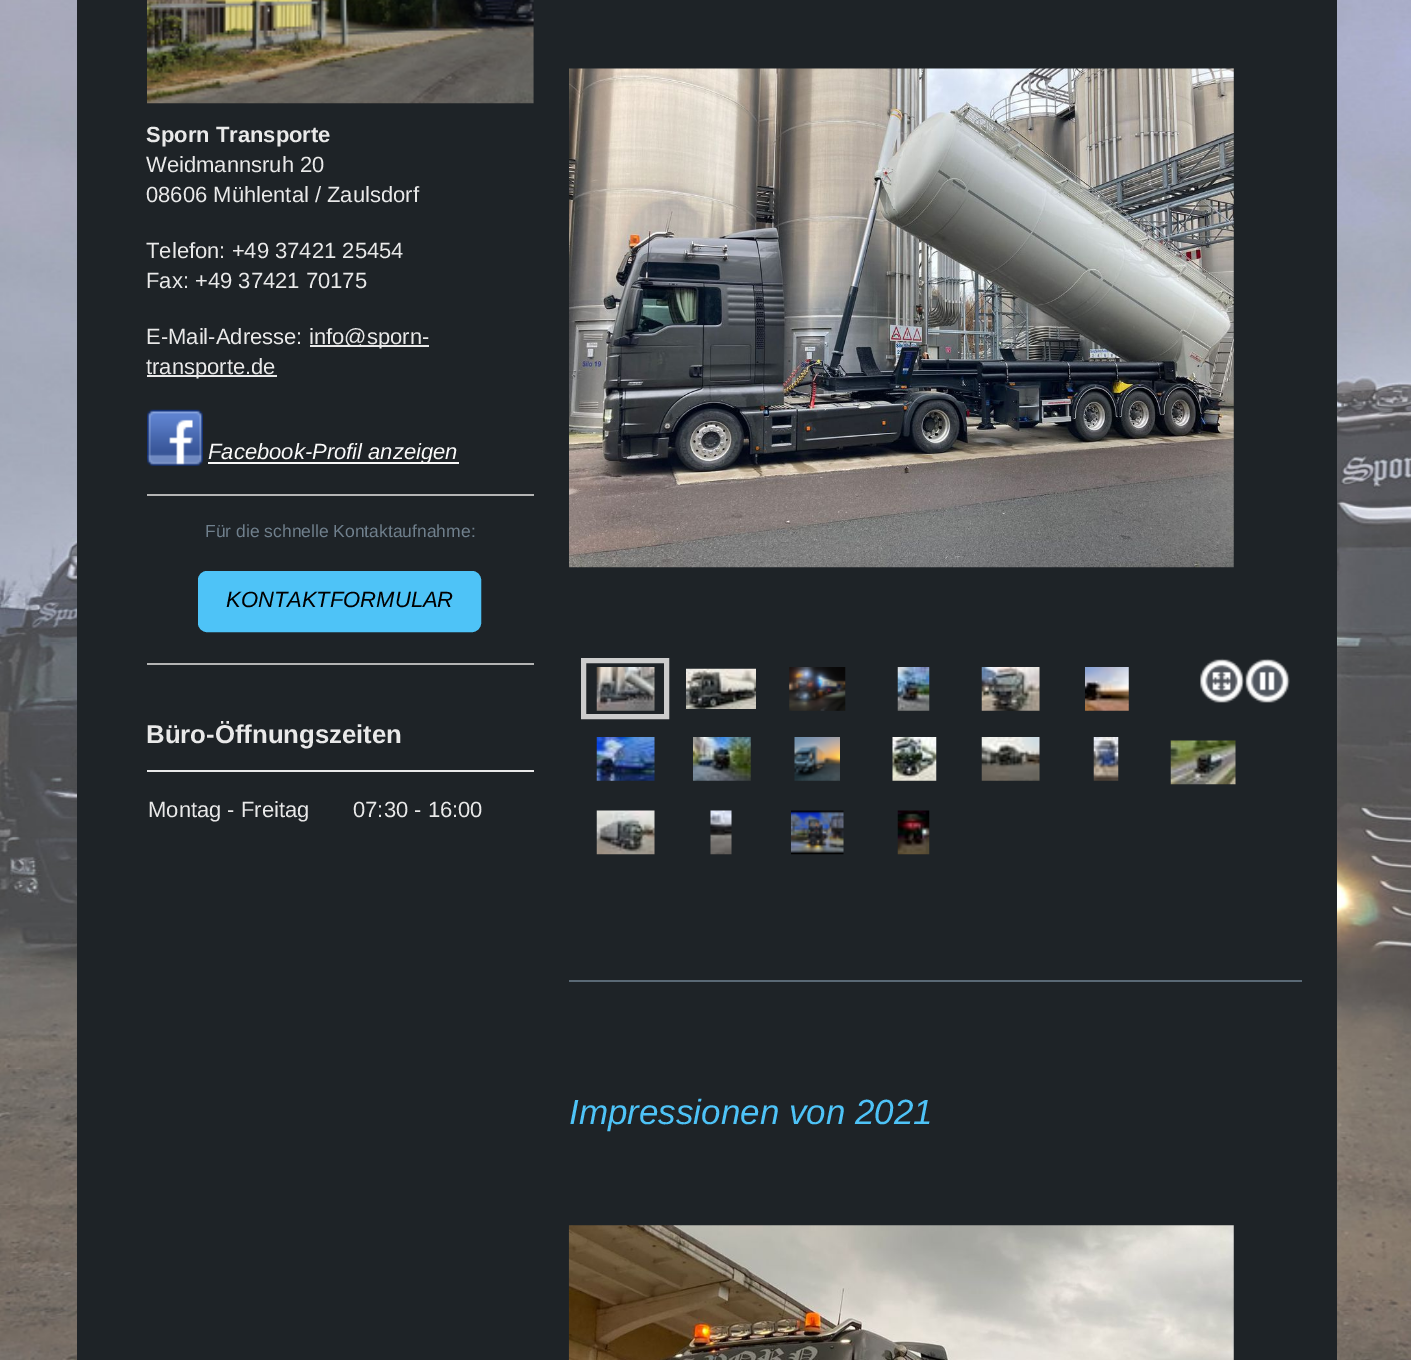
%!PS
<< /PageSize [1411 1360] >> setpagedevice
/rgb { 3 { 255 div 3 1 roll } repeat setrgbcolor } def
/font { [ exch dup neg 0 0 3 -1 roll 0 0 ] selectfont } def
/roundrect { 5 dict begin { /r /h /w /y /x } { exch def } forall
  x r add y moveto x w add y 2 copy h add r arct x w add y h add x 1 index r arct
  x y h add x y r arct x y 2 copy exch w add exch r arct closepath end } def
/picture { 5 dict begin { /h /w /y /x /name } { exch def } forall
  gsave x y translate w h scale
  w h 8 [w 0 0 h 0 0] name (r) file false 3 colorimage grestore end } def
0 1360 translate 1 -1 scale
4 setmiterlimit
255 255 255 rgb
0 0 1411 1360 rectfill
(img/1.rgb) 0 0 1411 1360 picture
30 35 39 rgb
77 0 1260 1360 rectfill
(img/2.rgb) 147 0 387 104 picture
233 233 233 rgb
310 345 119 2 rectfill
147 375 130 2 rectfill
(img/3.rgb) 147 409 56 57 picture
249 249 249 rgb
208 462 251 2 rectfill
180 180 180 rgb
147 494 387 2 rectfill
78 195 247 rgb
199 572 281 59 8 roundrect gsave fill grestore
2 setlinewidth
stroke
180 180 180 rgb
147 663 387 2 rectfill
233 233 233 rgb
147 770 387 2 rectfill
(img/4.rgb) 569 68 665 500 picture
204 204 204 rgb
5 setlinewidth
583.5 660.5 83 56 rectstroke
(img/5.rgb) 596 667 59 44 picture
(img/6.rgb) 686 668 70 41 picture
(img/7.rgb) 789 667 57 44 picture
(img/8.rgb) 897 667 33 44 picture
(img/9.rgb) 981 667 59 44 picture
(img/10.rgb) 1085 667 44 44 picture
(img/11.rgb) 1200 658 45 45 picture
(img/12.rgb) 1245 658 45 45 picture
(img/13.rgb) 596 737 59 44 picture
(img/14.rgb) 693 737 58 44 picture
(img/15.rgb) 794 737 46 44 picture
(img/16.rgb) 892 737 45 44 picture
(img/17.rgb) 981 737 59 44 picture
(img/18.rgb) 1093 737 26 44 picture
(img/19.rgb) 1170 740 66 45 picture
(img/20.rgb) 596 810 59 45 picture
(img/21.rgb) 710 810 22 45 picture
(img/22.rgb) 791 810 53 45 picture
(img/23.rgb) 897 810 33 45 picture
90 105 117 rgb
569 980 733 2 rectfill
(img/24.rgb) 568 1225 666 135 picture
/LiberationSans-Bold 22 font
233 233 233 rgb
146 142 moveto (Sporn Transporte) show
/LiberationSans-Regular 22 font
[
  [(Weidmannsruh 20) 146 172]
  [(08606 Mühlental / Zaulsdorf) 146 202]
  [(Telefon: +49 37421 25454) 146 258]
  [(Fax: +49 37421 70175) 146 288]
  [(E-Mail-Adresse:) 146 344]
  [(info@sporn-) 309 344]
  [(transporte.de) 146 374]
] { aload pop moveto show } forall
/LiberationSans-Italic 22 font
249 249 249 rgb
208 459 moveto (Facebook-Profil anzeigen) show
/LiberationSans-Regular 17.5 font
112 128 141 rgb
205 537 moveto (Für die schnelle Kontaktaufnahme:) show
/LiberationSans-Italic 22 font
0 0 0 rgb
226 607 moveto (KONTAKTFORMULAR) show
/LiberationSans-Bold 25.75 font
233 233 233 rgb
146 743 moveto (Büro-Öffnungszeiten) show
/LiberationSans-Regular 22 font
148 817 moveto (Montag - Freitag) show
353 817 moveto (07:30 - 16:00) show
/LiberationSans-Italic 35 font
78 195 247 rgb
569 1124 moveto (Impressionen von 2021) show
showpage
